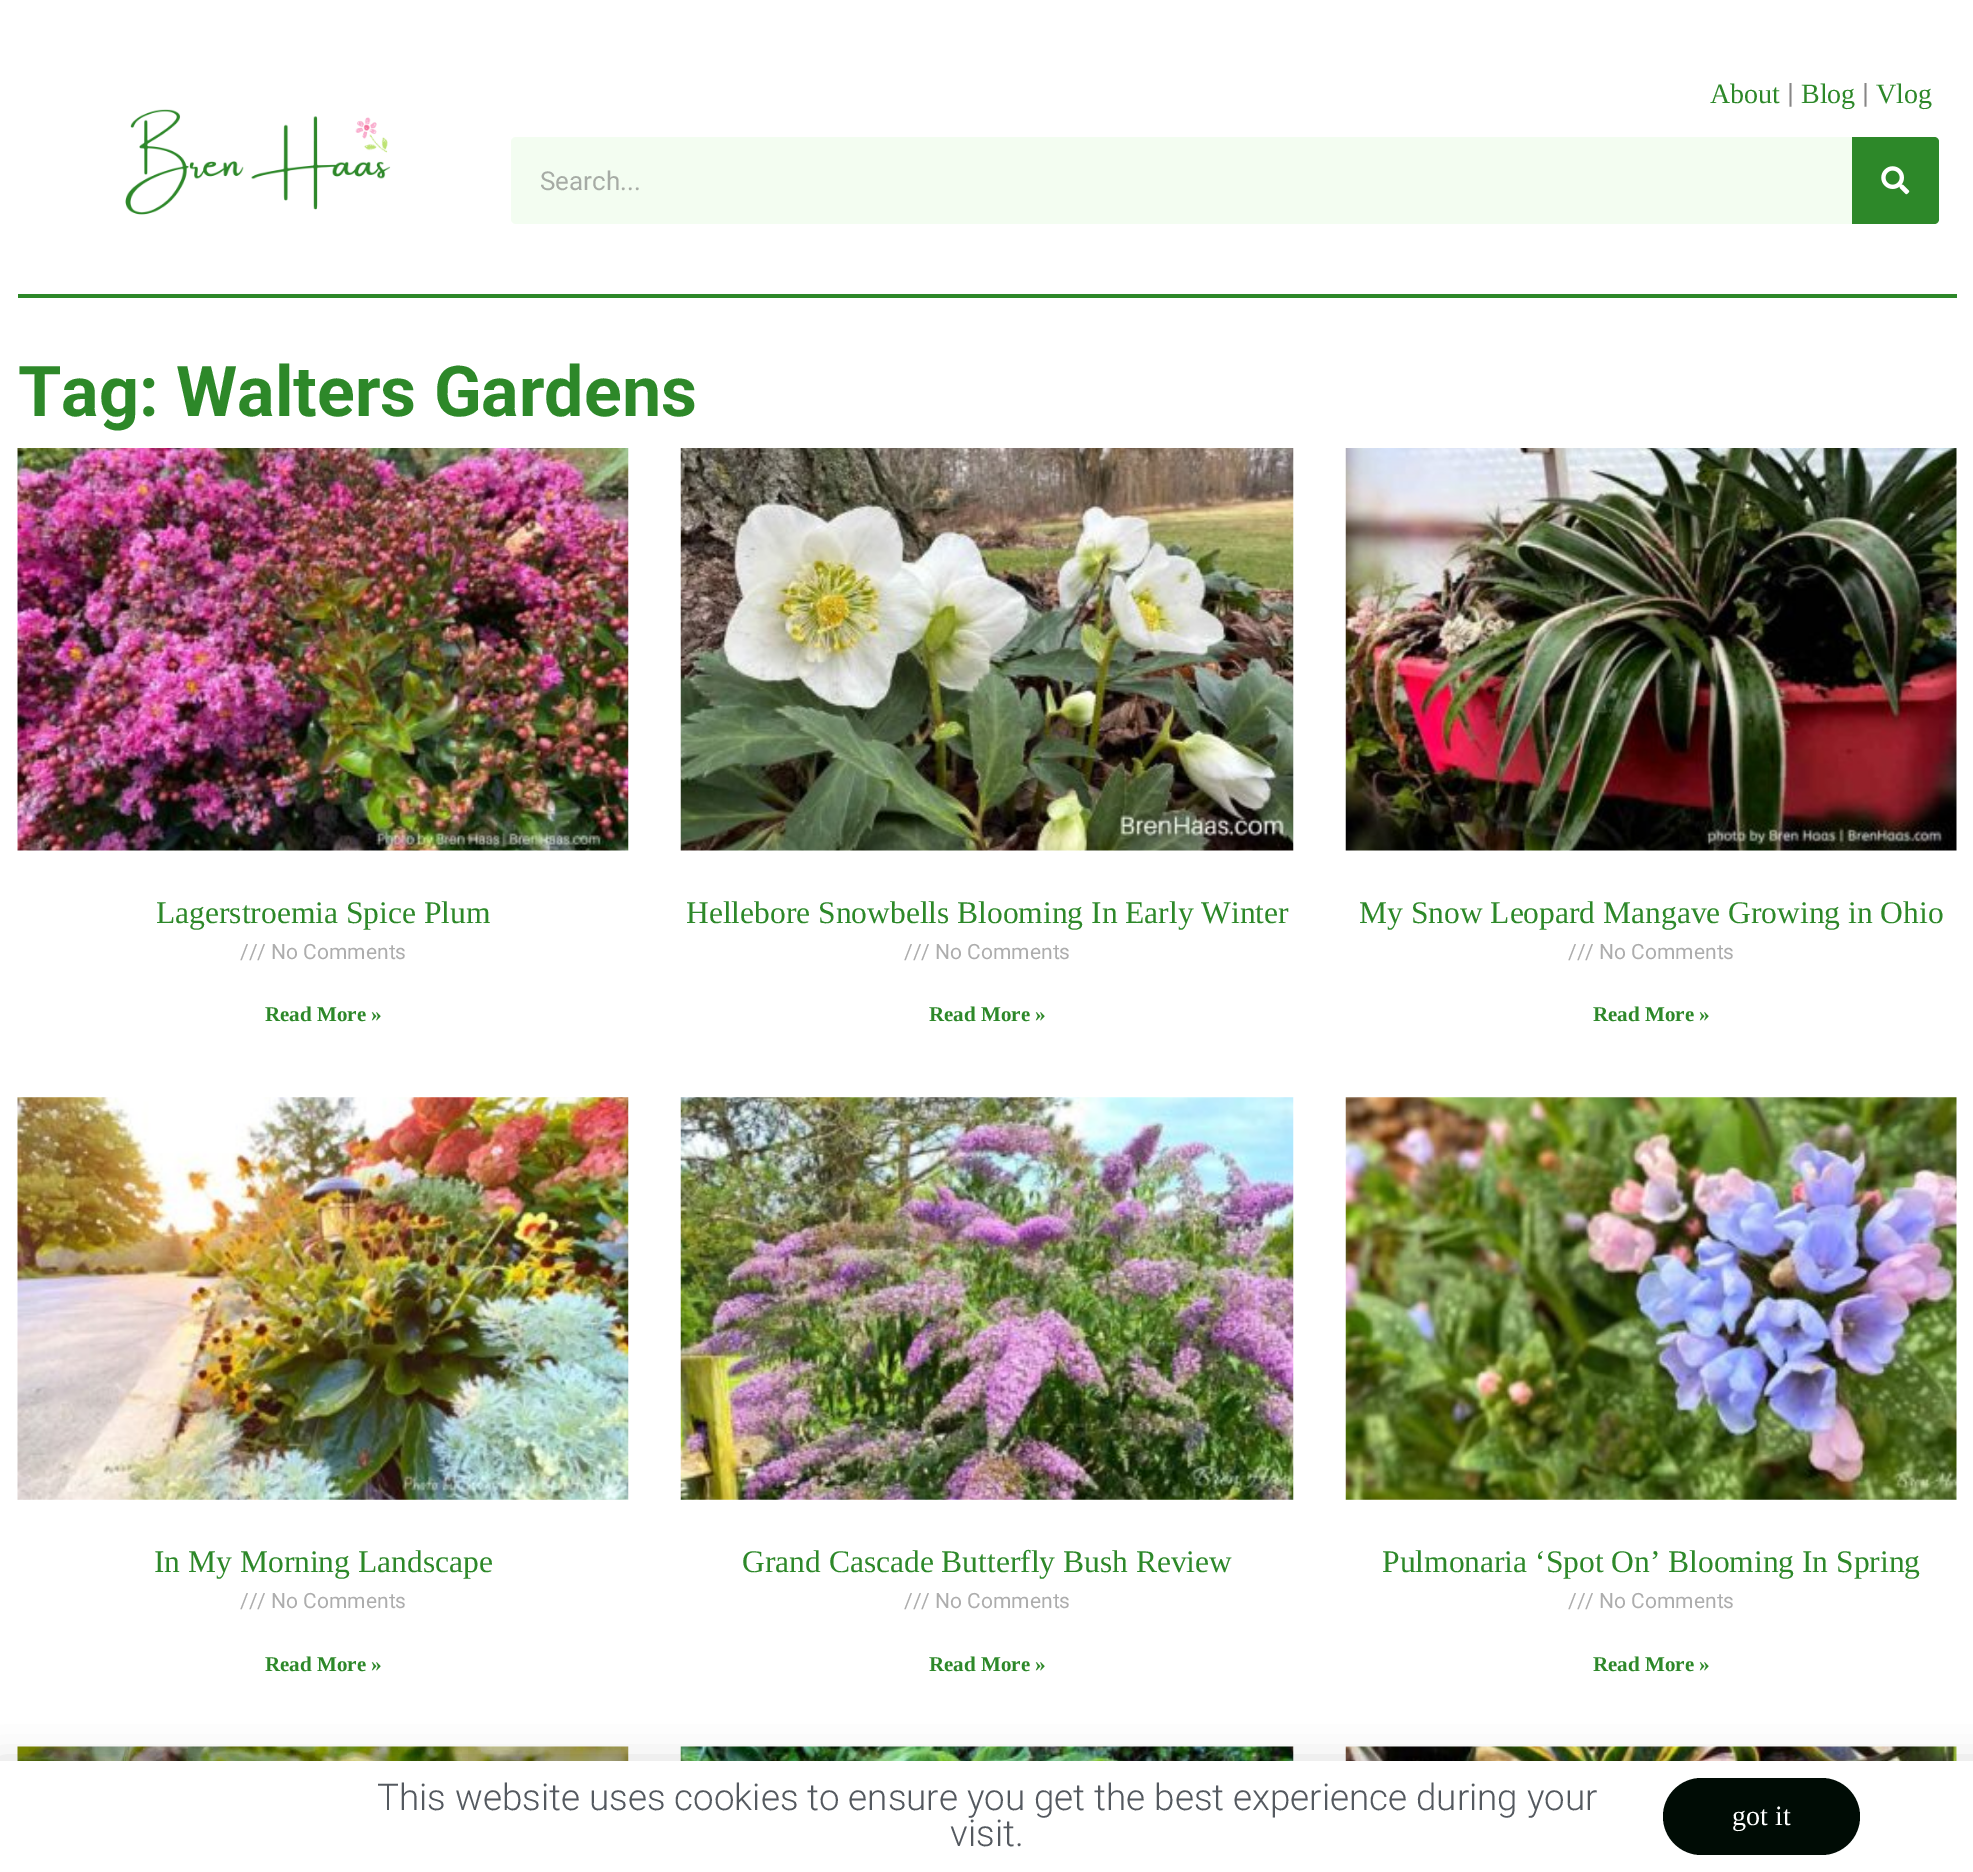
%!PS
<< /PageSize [1973 1872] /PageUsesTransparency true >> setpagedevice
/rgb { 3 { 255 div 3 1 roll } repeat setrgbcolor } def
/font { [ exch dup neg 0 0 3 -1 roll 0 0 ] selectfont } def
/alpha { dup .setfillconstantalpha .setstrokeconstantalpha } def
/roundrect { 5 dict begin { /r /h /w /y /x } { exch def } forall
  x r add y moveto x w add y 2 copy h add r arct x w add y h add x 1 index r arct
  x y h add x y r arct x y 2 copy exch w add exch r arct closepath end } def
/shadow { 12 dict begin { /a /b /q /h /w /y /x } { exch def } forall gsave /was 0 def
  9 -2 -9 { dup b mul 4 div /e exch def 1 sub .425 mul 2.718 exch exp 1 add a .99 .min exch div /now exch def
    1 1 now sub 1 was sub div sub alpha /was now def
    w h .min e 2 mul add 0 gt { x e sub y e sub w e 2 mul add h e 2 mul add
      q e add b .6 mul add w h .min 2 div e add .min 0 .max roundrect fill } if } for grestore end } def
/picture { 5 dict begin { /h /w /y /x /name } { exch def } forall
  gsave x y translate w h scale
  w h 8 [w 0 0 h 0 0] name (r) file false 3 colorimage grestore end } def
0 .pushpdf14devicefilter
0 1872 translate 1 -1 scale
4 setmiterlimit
255 255 255 rgb
0 0 1973 1872 rectfill
(img/1.rgb) 125 109 266 106 picture
243 253 241 rgb
511 137 1428 87 5 roundrect fill
45 136 41 rgb
1852 137 moveto 1934 137 lineto 1937 137 1939 139 1939 142 curveto 1939 219 lineto 1939 222 1937 224 1934 224 curveto 1852 224 lineto closepath fill
(img/2.rgb) 1881 166 29 29 picture
18 294 1939 4 rectfill
(img/3.rgb) 17 448 612 403 picture
(img/4.rgb) 680 448 614 403 picture
(img/5.rgb) 1345 448 612 403 picture
(img/6.rgb) 17 1097 612 403 picture
(img/7.rgb) 680 1097 614 403 picture
(img/8.rgb) 1345 1097 612 403 picture
(img/9.rgb) 17 1746 612 15 picture
(img/10.rgb) 680 1746 614 15 picture
(img/11.rgb) 1345 1746 612 15 picture
0 0 0 rgb
-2 1769 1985 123 0 20 0.2 shadow
255 255 255 rgb
0 1761 1973 111 rectfill
0 12 5 rgb
1663 1778 197 77 38.5 roundrect fill
/LiberationSerif-Regular 28 font
45 136 41 rgb
1710 103 moveto (About) show
/Roboto-Regular 28 font
135 134 134 rgb
1787 103 moveto (|) show
/LiberationSerif-Regular 28 font
45 136 41 rgb
1801 103 moveto (Blog) show
/Roboto-Regular 28 font
135 134 134 rgb
1862 103 moveto (|) show
/LiberationSerif-Regular 28 font
45 136 41 rgb
1876 103 moveto (Vlog) show
/Roboto-Regular 26 font
166 171 165 rgb
540 190 moveto (Search...) show
/Roboto-Bold 70 font
45 136 41 rgb
18 416 moveto (Tag: Walters Gardens) show
/LiberationSerif-Regular 31.5 font
156 923 moveto (Lagerstroemia Spice Plum) show
/Roboto-Regular 21 font
173 173 173 rgb
240 959 moveto (/// No Comments) show
/LiberationSerif-Bold 21 font
45 136 41 rgb
265 1021 moveto (Read More ») show
/LiberationSerif-Regular 31.5 font
686 923 moveto (Hellebore Snowbells Blooming In Early Winter) show
/Roboto-Regular 21 font
173 173 173 rgb
904 959 moveto (/// No Comments) show
/LiberationSerif-Bold 21 font
45 136 41 rgb
929 1021 moveto (Read More ») show
/LiberationSerif-Regular 31.5 font
1359 923 moveto (My Snow Leopard Mangave Growing in Ohio) show
/Roboto-Regular 21 font
173 173 173 rgb
1568 959 moveto (/// No Comments) show
/LiberationSerif-Bold 21 font
45 136 41 rgb
1593 1021 moveto (Read More ») show
/LiberationSerif-Regular 31.5 font
154 1572 moveto (In My Morning Landscape) show
/Roboto-Regular 21 font
173 173 173 rgb
240 1608 moveto (/// No Comments) show
/LiberationSerif-Bold 21 font
45 136 41 rgb
265 1671 moveto (Read More ») show
/LiberationSerif-Regular 31.5 font
742 1572 moveto (Grand Cascade Butterfly Bush Review) show
/Roboto-Regular 21 font
173 173 173 rgb
904 1608 moveto (/// No Comments) show
/LiberationSerif-Bold 21 font
45 136 41 rgb
929 1671 moveto (Read More ») show
/LiberationSerif-Regular 31.5 font
1382 1572 moveto (Pulmonaria ‘Spot On’ Blooming In Spring) show
/Roboto-Regular 21 font
173 173 173 rgb
1568 1608 moveto (/// No Comments) show
/LiberationSerif-Bold 21 font
45 136 41 rgb
1593 1671 moveto (Read More ») show
/Roboto-Light 36.75 font
84 89 95 rgb
377 1810 moveto (This website uses cookies to ensure you get the best experience during your) show
950 1846 moveto (visit.) show
/LiberationSerif-Regular 28 font
255 255 255 rgb
1732 1825 moveto (got it) show
.poppdf14devicefilter showpage
